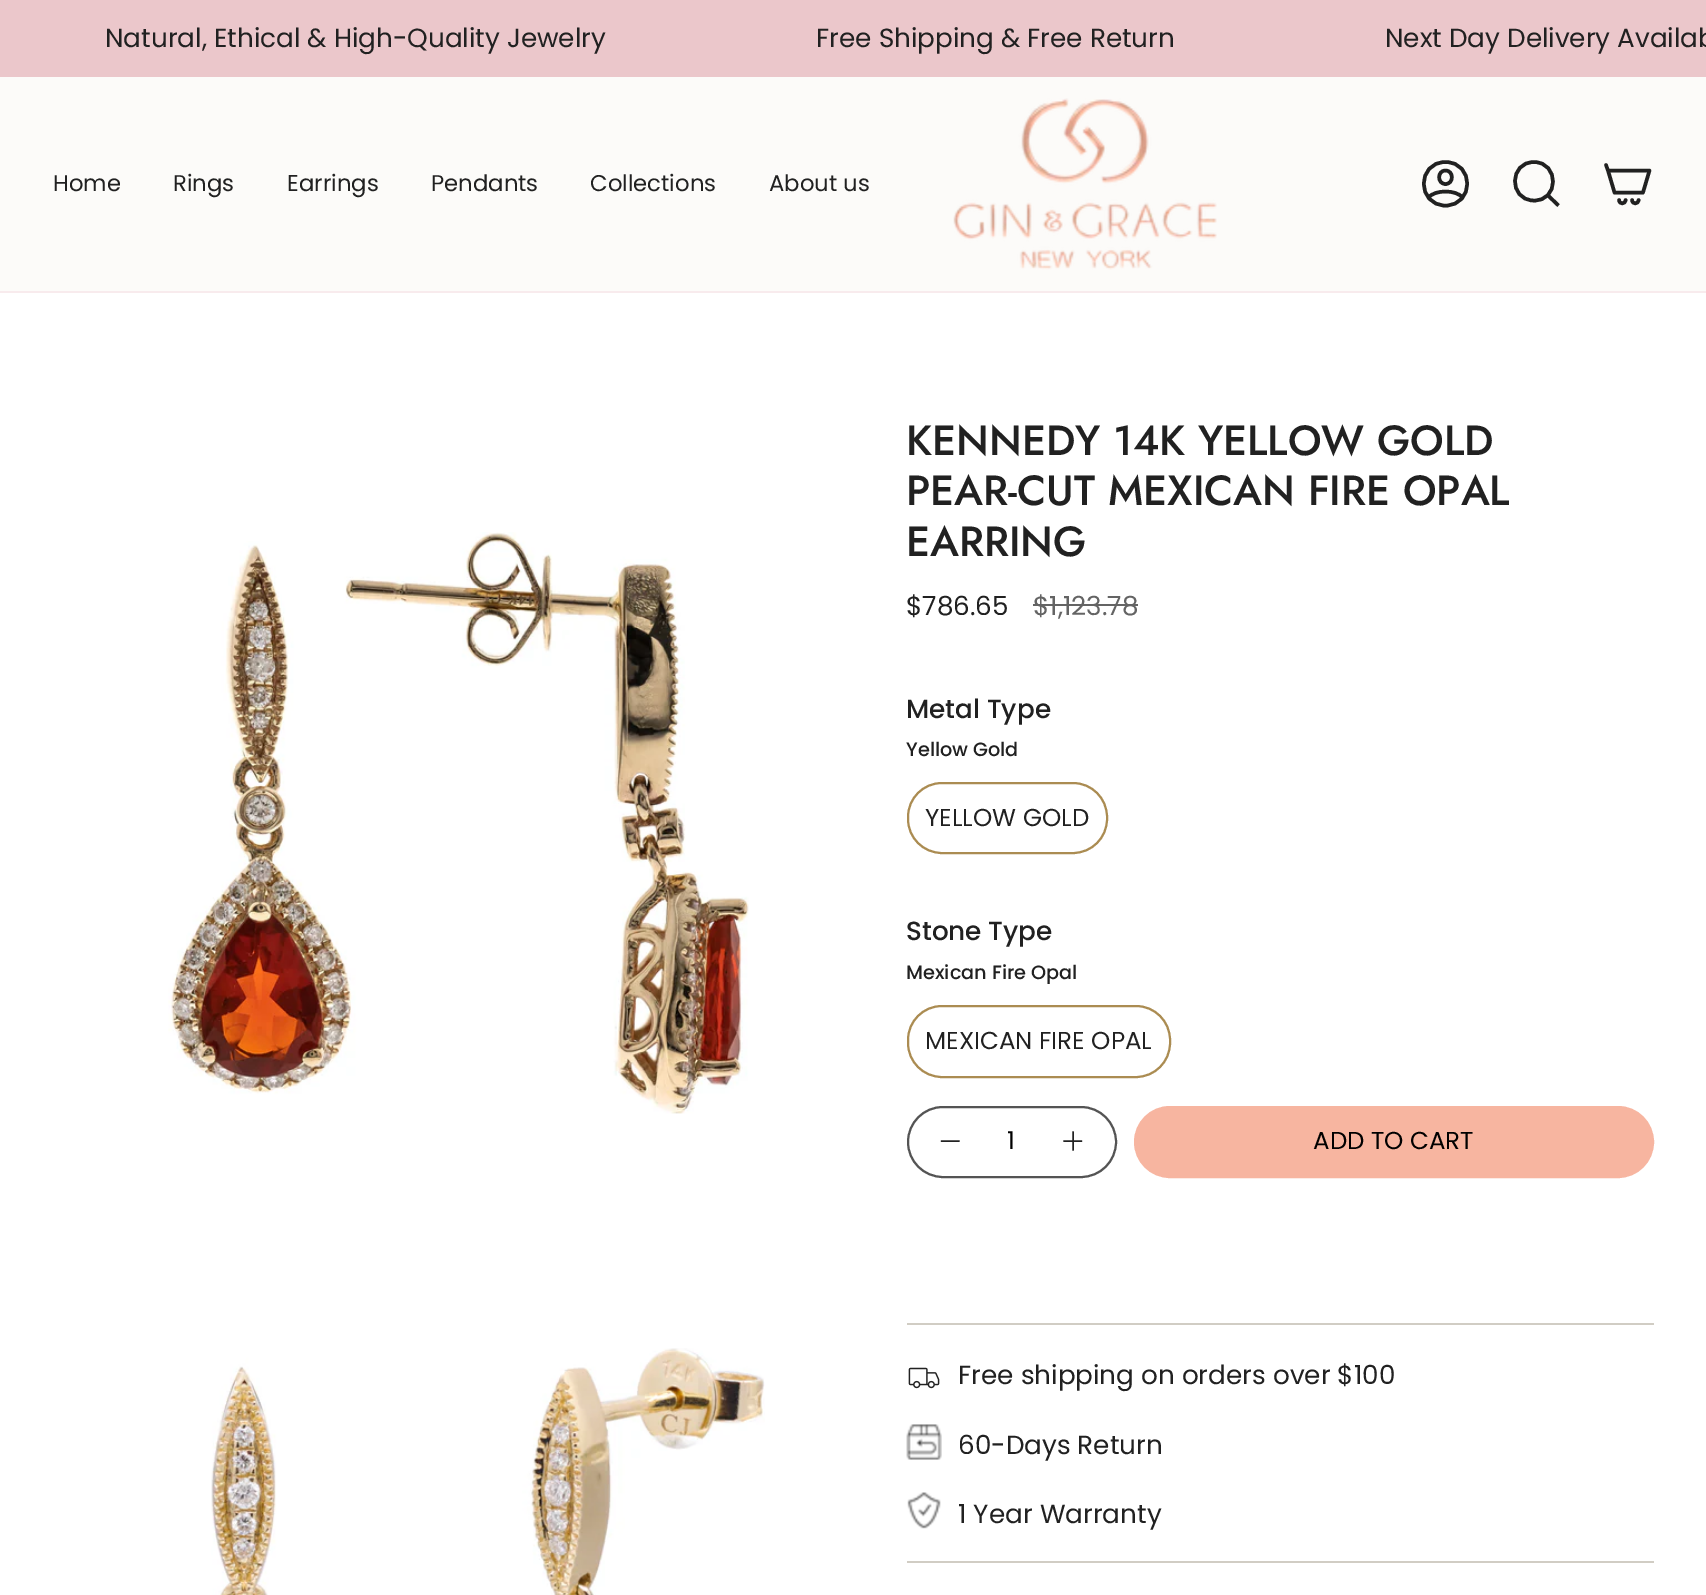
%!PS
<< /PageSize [1706 1595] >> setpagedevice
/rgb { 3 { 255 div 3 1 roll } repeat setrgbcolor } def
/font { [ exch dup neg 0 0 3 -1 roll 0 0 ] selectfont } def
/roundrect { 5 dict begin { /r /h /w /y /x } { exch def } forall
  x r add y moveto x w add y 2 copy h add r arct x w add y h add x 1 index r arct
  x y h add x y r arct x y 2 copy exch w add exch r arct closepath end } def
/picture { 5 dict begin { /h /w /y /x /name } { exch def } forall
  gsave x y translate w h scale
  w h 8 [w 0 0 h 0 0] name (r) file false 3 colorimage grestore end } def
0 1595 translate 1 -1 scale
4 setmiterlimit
255 255 255 rgb
0 0 1706 1595 rectfill
235 199 203 rgb
0 0 1706 77 rectfill
252 251 249 rgb
0 77 1706 214 rectfill
(img/1.rgb) 953 98 264 172 picture
33 33 33 rgb
3.5 setlinewidth
1 setlinecap
1 setlinejoin
1445.5 162 moveto 1416.5 162 1416.5 205.5 1445.5 205.5 curveto 1474.5 205.5 1474.5 162 1445.5 162 curveto closepath 1428.5 197.5 moveto 1435 189.5 1456 189.5 1462.5 197.5 curveto 1445.5 184 moveto 1454 184 1454 170.5 1445.5 170.5 curveto 1437 170.5 1437 184 1445.5 184 curveto closepath stroke
0 setlinecap
0 setlinejoin
1534 162 moveto 1559.5 162 1559.5 202 1533 200.5 curveto 1508.5 199.5 1509 162 1534 162 curveto closepath 1547.5 195 moveto 1558.5 205.5 lineto stroke
1 setlinecap
1 setlinejoin
1608 170.5 moveto 1649.5 170.5 lineto 1643 192.5 lineto 1614.5 192.5 lineto closepath 1608 170.5 moveto 1606 165 lineto 1625.5 200 moveto 1625.5 204.5 1619 204.5 1619 200 curveto 1638.5 200 moveto 1638.5 204.5 1632 204.5 1632 200 curveto stroke
248 235 237 rgb
0 291 1706 2 rectfill
(img/2.rgb) 168 532 581 582 picture
(img/3.rgb) 211 1348 554 247 picture
100 100 100 rgb
1033 604 105 2 rectfill
171 140 82 rgb
2 setlinewidth
0 setlinecap
0 setlinejoin
908 783 199 70 34 roundrect stroke
908 1006 262 71 34 roundrect stroke
84 84 84 rgb
908 1107 208 70 35 roundrect stroke
34 34 34 rgb
1.5 setlinewidth
1 setlinecap
1 setlinejoin
941.5 1141 moveto 959 1141 lineto stroke
1064 1141 moveto 1073 1141 lineto 1081.5 1141 moveto 1073 1141 lineto 1073 1141 moveto 1073 1132 lineto 1073 1141 moveto 1073 1150 lineto stroke
247 181 160 rgb
1135 1107 518 70 35 roundrect gsave fill grestore
2 setlinewidth
0 setlinecap
0 setlinejoin
stroke
209 205 196 rgb
907 1323 747 2 rectfill
(img/4.rgb) 908 1367 32 22 picture
(img/5.rgb) 906 1424 36 36 picture
(img/6.rgb) 907 1492 34 37 picture
907 1561 747 2 rectfill
/Poppins-Regular 26.25 font
33 33 33 rgb
[
  [(Natural, Ethical & High-Quality Jewelry) 105 47]
  [(Free Shipping & Free Return) 816 47]
  [(Next Day Delivery Availab) 1385 47]
] { aload pop moveto show } forall
/Poppins-Regular 22.75 font
[
  [(Home) 53 191]
  [(Rings) 173 191]
  [(Earrings) 287 191]
  [(Pendants) 431 191]
  [(Collections) 590 191]
  [(About us) 769 191]
] { aload pop moveto show } forall
/Jost-Medium 42 font
[
  [(KENNEDY 14K YELLOW GOLD) 906 455]
  [(PEAR-CUT MEXICAN FIRE OPAL) 906 505]
  [(EARRING) 906 556]
] { aload pop moveto show } forall
/Poppins-Regular 26.25 font
906 615 moveto ($786.65) show
100 100 100 rgb
1033 615 moveto ($1,123.78) show
/Poppins-Medium 26.25 font
33 33 33 rgb
906 718 moveto (Metal Type) show
/Poppins-Medium 19.25 font
906 756 moveto (Yellow Gold) show
/Poppins-Regular 24.5 font
925 826 moveto (YELLOW GOLD) show
/Poppins-Medium 26.25 font
906 940 moveto (Stone Type) show
/Poppins-Medium 19.25 font
906 979 moveto (Mexican Fire Opal) show
/Poppins-Regular 24.5 font
925 1049 moveto (MEXICAN FIRE OPAL) show
0 0 0 rgb
1007 1149 moveto (1) show
1313 1149 moveto (ADD TO CART) show
/Poppins-Regular 26.25 font
33 33 33 rgb
[
  [(Free shipping on orders over $100) 958 1384]
  [(60-Days Return) 958 1454]
  [(1 Year Warranty) 958 1523]
] { aload pop moveto show } forall
showpage
